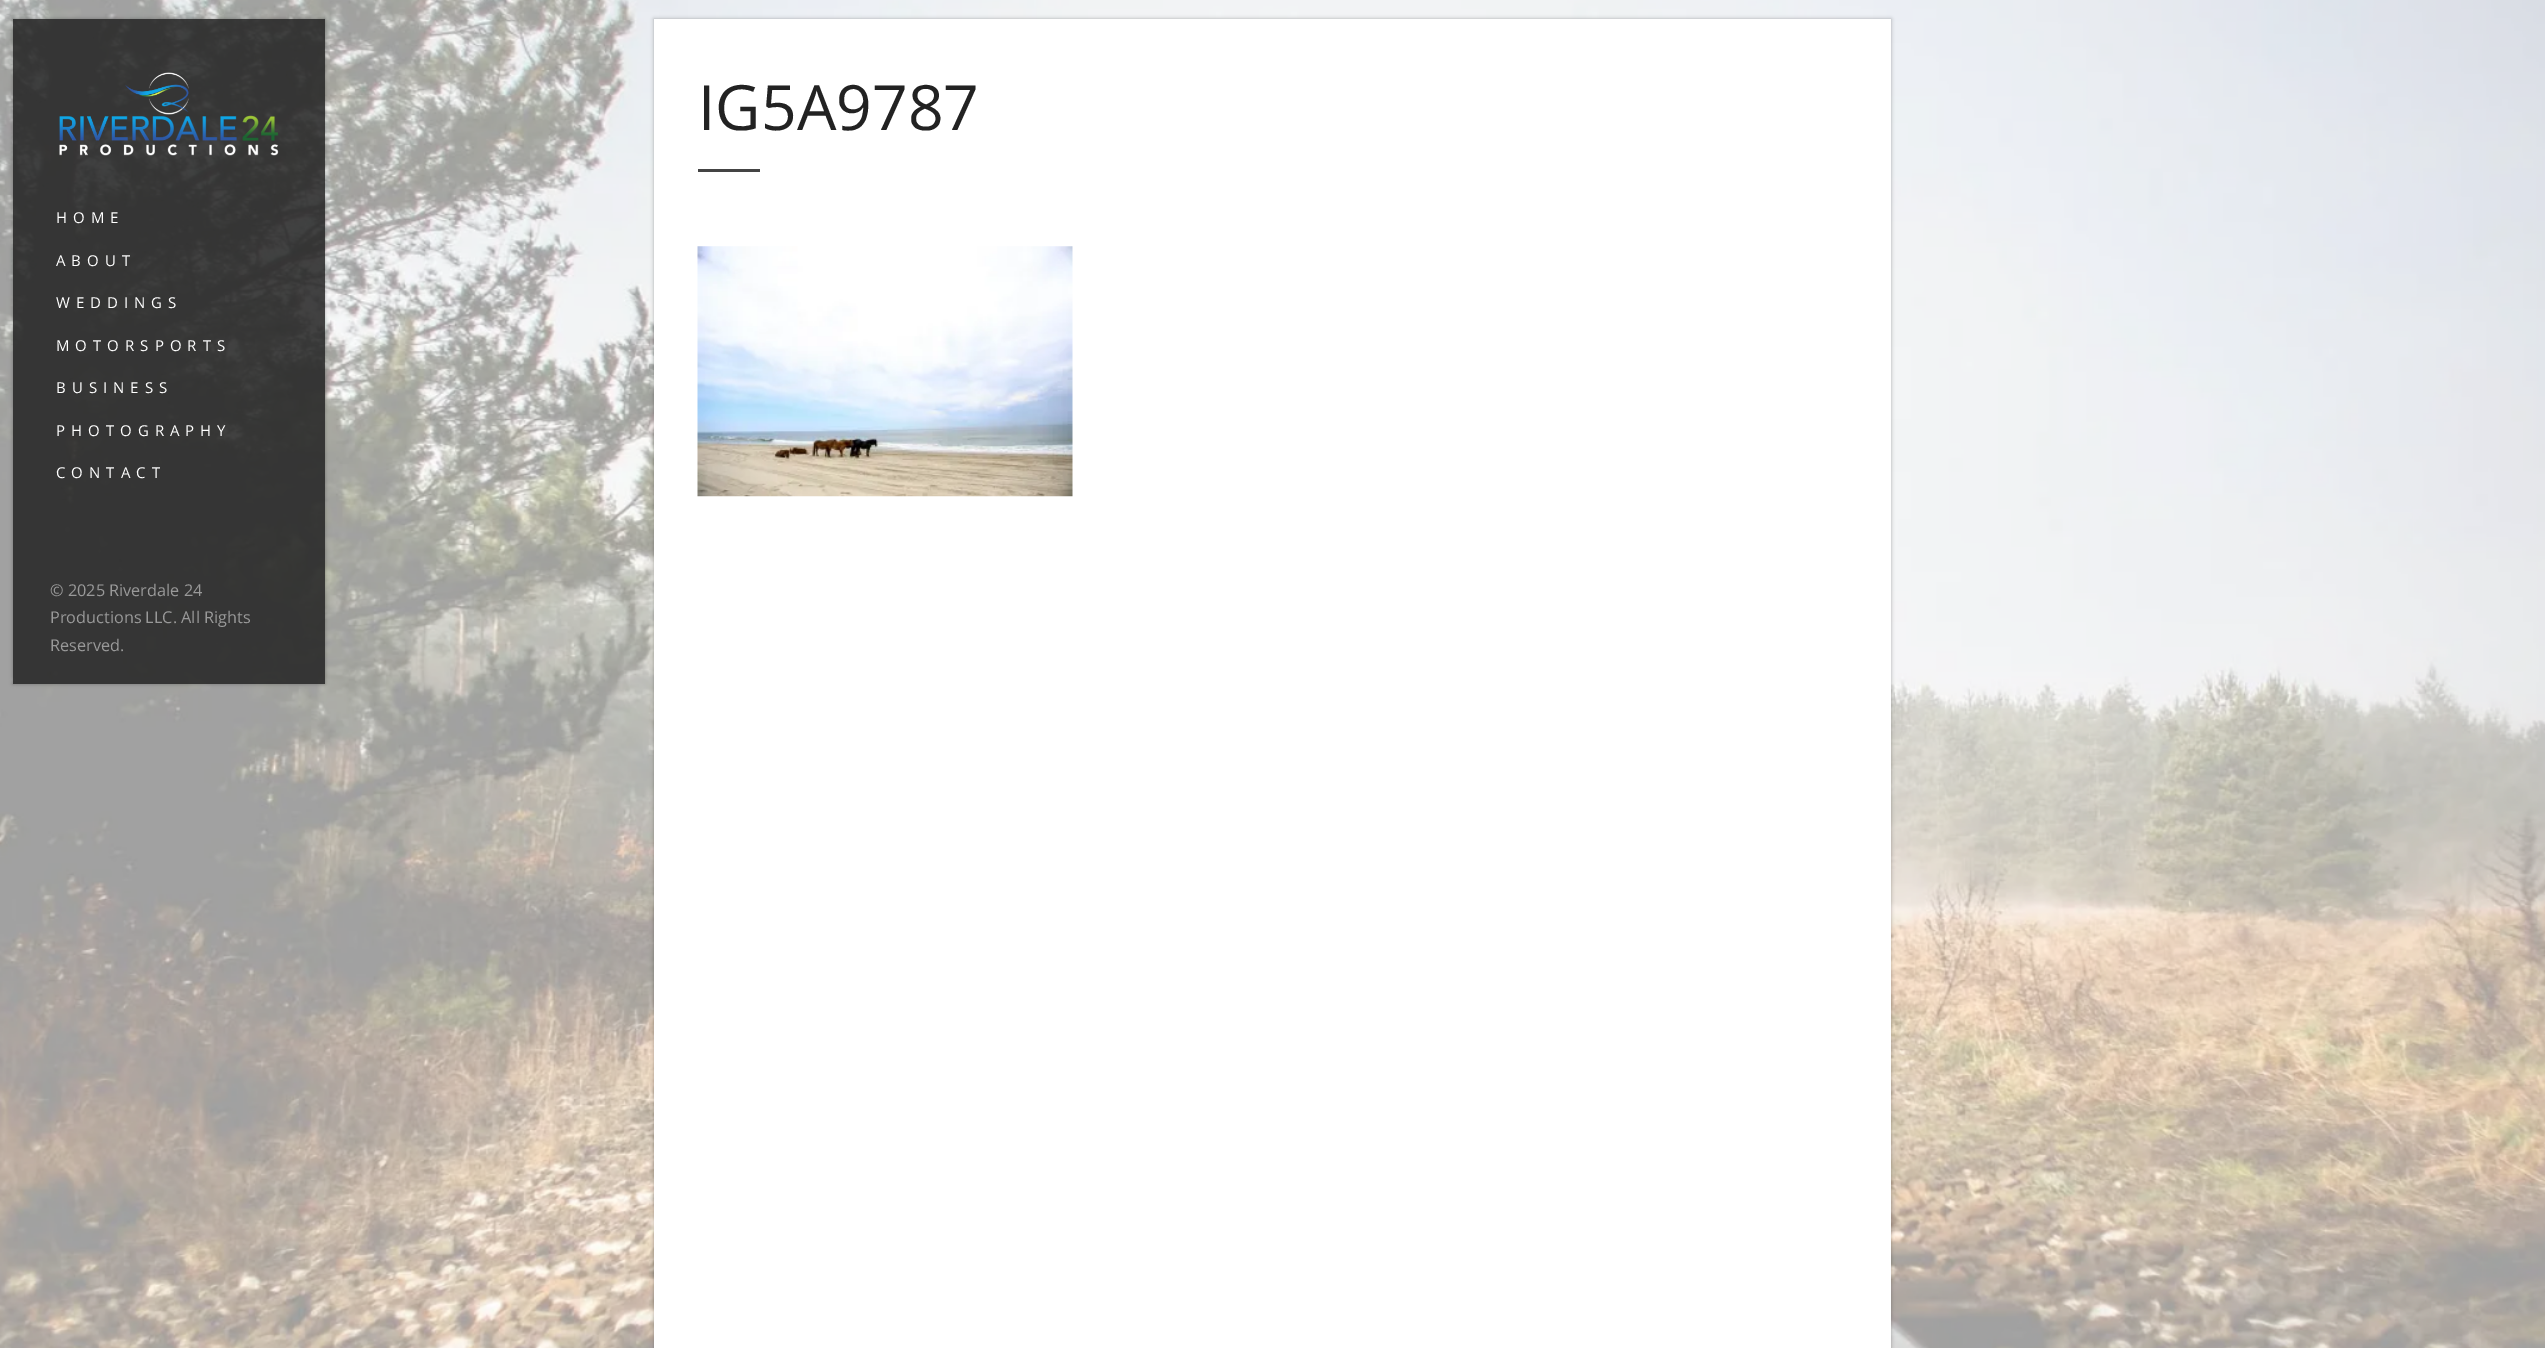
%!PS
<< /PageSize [2545 1348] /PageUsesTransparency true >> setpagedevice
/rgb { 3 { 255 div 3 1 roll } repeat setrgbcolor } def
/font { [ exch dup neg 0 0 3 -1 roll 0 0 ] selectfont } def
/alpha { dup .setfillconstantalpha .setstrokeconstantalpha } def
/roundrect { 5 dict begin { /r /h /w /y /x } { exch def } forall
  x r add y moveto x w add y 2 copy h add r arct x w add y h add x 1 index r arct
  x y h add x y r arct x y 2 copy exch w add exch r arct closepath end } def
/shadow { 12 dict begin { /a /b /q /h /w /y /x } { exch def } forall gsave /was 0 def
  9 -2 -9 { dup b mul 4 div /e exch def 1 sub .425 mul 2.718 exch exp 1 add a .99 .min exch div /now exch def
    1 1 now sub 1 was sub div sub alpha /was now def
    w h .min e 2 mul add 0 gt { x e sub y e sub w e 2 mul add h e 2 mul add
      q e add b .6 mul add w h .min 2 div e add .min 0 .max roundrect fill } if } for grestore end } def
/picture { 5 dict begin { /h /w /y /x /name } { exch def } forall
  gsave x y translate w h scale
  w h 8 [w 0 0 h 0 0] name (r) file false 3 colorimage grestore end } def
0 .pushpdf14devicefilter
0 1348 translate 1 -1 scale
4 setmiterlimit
255 255 255 rgb
0 0 2545 1348 rectfill
(img/1.rgb) 0 0 2545 1348 picture
0 0 0 rgb
654 19 1237 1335 0 2 0.3 shadow
255 255 255 rgb
654 19 1237 1329 rectfill
68 68 68 rgb
698 169 62 3 rectfill
(img/2.rgb) 697 246 376 251 picture
gsave
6 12 moveto 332 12 lineto 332 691 lineto 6 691 lineto closepath 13 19 moveto 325 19 lineto 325 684 lineto 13 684 lineto closepath eoclip newpath
0 0 0 rgb
13 19 312 665 0 2 0.3 shadow
grestore
0.85 alpha
34 34 34 rgb
13 19 312 665 rectfill
1 alpha
(img/3.rgb) 59 72 220 84 picture
/OpenSans-Regular 62.5 font
698 130 moveto (IG5A9787) show
/OpenSans-Regular 15 font
255 255 255 rgb
56 223 moveto 6 0 (HOME) ashow
56 266 moveto 6 0 (ABOUT) ashow
56 308 moveto 6 0 (WEDDINGS) ashow
56 351 moveto 6 0 (MOTORSPORTS) ashow
56 393 moveto 6 0 (BUSINESS) ashow
56 436 moveto 6 0 (PHOTOGRAPHY) ashow
56 478 moveto 6 0 (CONTACT) ashow
/OpenSans-Regular 16.25 font
153 153 153 rgb
[
  [(© 2025 Riverdale 24) 50 596]
  [(Productions LLC. All Rights) 50 623]
  [(Reserved.) 50 651]
] { aload pop moveto show } forall
.poppdf14devicefilter showpage
